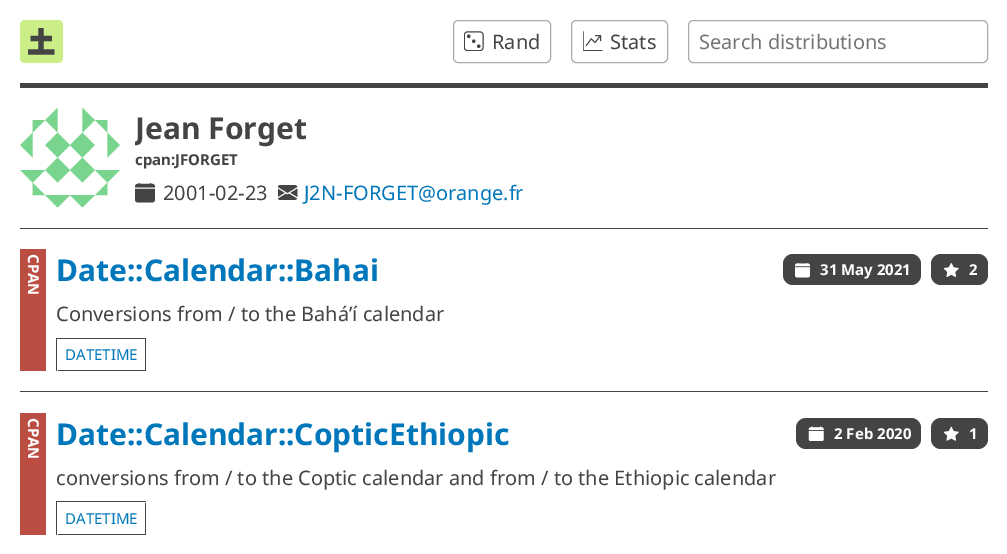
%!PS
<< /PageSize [1007 554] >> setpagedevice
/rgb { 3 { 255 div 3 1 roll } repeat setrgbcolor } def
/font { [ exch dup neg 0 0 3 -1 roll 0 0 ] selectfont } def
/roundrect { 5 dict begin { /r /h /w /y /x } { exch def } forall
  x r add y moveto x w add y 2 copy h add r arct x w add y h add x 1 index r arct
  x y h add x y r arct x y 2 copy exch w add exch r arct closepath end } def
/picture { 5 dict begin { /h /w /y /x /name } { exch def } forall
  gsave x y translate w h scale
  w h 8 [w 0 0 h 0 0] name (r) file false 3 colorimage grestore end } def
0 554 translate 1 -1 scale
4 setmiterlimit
255 255 255 rgb
0 0 1007 554 rectfill
68 68 68 rgb
20 83 968 5 rectfill
204 238 136 rgb
20 20 43 43 5 roundrect fill
68 68 68 rgb
5.3 setlinewidth
28 52 moveto 54.5 52 lineto 30.5 38.5 moveto 52 38.5 lineto 41 28 moveto 41 54.5 lineto stroke
170 170 170 rgb
1 setlinewidth
453.5 20.5 97 42 4.5 roundrect stroke
(img/1.rgb) 464 31 20 20 picture
571.5 20.5 96 42 4.5 roundrect stroke
(img/2.rgb) 583 31 20 20 picture
688.5 20.5 299 42 4.5 roundrect stroke
(img/3.rgb) 20 107 100 101 picture
(img/4.rgb) 135 183 20 20 picture
(img/5.rgb) 278 185 20 15 picture
[
  [20 228 968 1 68 68 68]
  [20 391 968 1 68 68 68]
  [20 249 26 122 188 77 67]
] { aload pop rgb rectfill } forall
68 68 68 rgb
783 254 138 31 10 roundrect fill
(img/6.rgb) 795 263 15 15 picture
931 254 57 31 10 roundrect fill
(img/7.rgb) 943 263 16 14 picture
[
  [56 338 90 1 68 68 68]
  [56 338 1 33 68 68 68]
  [145 339 1 32 68 68 68]
  [58 370 88 1 68 68 68]
  [20 413 26 122 188 77 67]
] { aload pop rgb rectfill } forall
68 68 68 rgb
796 418 125 31 10 roundrect fill
(img/8.rgb) 808 426 16 15 picture
931 418 57 31 10 roundrect fill
(img/9.rgb) 943 426 16 15 picture
[
  [56 501 90 1 68 68 68]
  [56 501 1 34 68 68 68]
  [145 503 1 32 68 68 68]
  [58 534 88 1 68 68 68]
] { aload pop rgb rectfill } forall
/NotoSans-Regular 20 font
492 49 moveto (Rand) show
610 49 moveto (Stats) show
117 117 117 rgb
699 49 moveto (Search distributions) show
gsave
135 108 853 40 rectclip
/NotoSans-Bold 30 font
68 68 68 rgb
135 139 moveto (Jean Forget) show
grestore
/NotoSans-Bold 15 font
68 68 68 rgb
135 165 moveto (cpan:JFORGET) show
/NotoSans-Regular 20 font
163 200 moveto (2001-02-23) show
0 119 187 rgb
304 200 moveto (J2N-FORGET@orange.fr) show
/NotoSans-Bold 15 font
255 255 255 rgb
gsave 28 254 translate 90 rotate 0 0 moveto (CPAN) show grestore
/NotoSans-Bold 30 font
0 119 187 rgb
56 281 moveto (Date::Calendar::Bahai) show
/NotoSans-Bold 15 font
255 255 255 rgb
820 275 moveto (31 May 2021) show
969 275 moveto (2) show
/NotoSans-Regular 20 font
68 68 68 rgb
56 321 moveto (Conversions from / to the Baháʼí calendar) show
/NotoSans-Regular 15 font
0 119 187 rgb
65 360 moveto (DATETIME) show
/NotoSans-Bold 15 font
255 255 255 rgb
gsave 28 418 translate 90 rotate 0 0 moveto (CPAN) show grestore
/NotoSans-Bold 30 font
0 119 187 rgb
56 445 moveto (Date::Calendar::CopticEthiopic) show
/NotoSans-Bold 15 font
255 255 255 rgb
834 439 moveto (2 Feb 2020) show
969 439 moveto (1) show
/NotoSans-Regular 20 font
68 68 68 rgb
56 485 moveto (conversions from / to the Coptic calendar and from / to the Ethiopic calendar) show
/NotoSans-Regular 15 font
0 119 187 rgb
65 524 moveto (DATETIME) show
showpage
